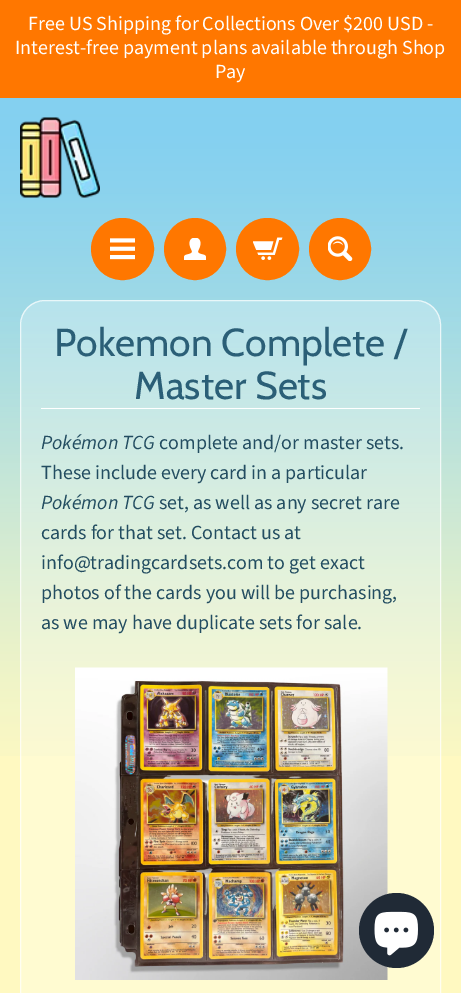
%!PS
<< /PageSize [461 993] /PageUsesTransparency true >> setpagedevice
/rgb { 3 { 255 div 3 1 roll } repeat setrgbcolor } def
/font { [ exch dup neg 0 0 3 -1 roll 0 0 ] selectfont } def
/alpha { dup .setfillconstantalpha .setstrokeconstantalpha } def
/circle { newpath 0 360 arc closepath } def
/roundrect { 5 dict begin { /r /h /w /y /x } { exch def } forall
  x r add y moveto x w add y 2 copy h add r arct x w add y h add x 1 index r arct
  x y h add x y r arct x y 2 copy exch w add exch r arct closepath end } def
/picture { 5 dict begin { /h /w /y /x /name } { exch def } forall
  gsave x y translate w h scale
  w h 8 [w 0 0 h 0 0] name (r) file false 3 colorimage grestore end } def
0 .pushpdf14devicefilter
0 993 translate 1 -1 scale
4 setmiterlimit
255 249 193 rgb
0 0 461 993 rectfill
(img/1.rgb) 0 98 461 658 picture
255 119 0 rgb
0 0 461 98 rectfill
(img/2.rgb) 20 117 80 81 picture
93 220 59 58 29 roundrect gsave fill grestore
4 setlinewidth
stroke
(img/3.rgb) 110 238 25 22 picture
195 249 29 circle gsave fill grestore
stroke
(img/4.rgb) 184 238 22 22 picture
238 220 59 58 29 roundrect gsave fill grestore
stroke
(img/5.rgb) 253 237 30 23 picture
340 249 29 circle gsave fill grestore
stroke
(img/6.rgb) 328 236 25 25 picture
0.25 alpha
255 255 255 rgb
20 300 421 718 25 roundrect fill
0.7 alpha
1 setlinewidth
20.5 300.5 420 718 24.5 roundrect stroke
1 alpha
41 408 379 1 rectfill
(img/7.rgb) 75 667 313 313 picture
32 42 54 rgb
396.5 930.5 37.5 circle fill
(img/8.rgb) 374 911 44 45 picture
/SourceSansPro-Regular 20 font
255 255 255 rgb
[
  [(Free US Shipping for Collections Over $200 USD -) 28 30]
  [(Interest-free payment plans available through Shop) 15 54]
  [(Pay) 215 78]
] { aload pop moveto show } forall
/Cabin-Regular 39 font
43 95 119 rgb
54 356 moveto (Pokemon Complete /) show
134 399 moveto (Master Sets) show
/SourceSansPro-Italic 20 font
35 77 97 rgb
41 449 moveto (Pokémon TCG) show
/SourceSansPro-Regular 20 font
159 449 moveto (complete and/or master sets.) show
41 479 moveto (These include every card in a particular) show
/SourceSansPro-Italic 20 font
41 509 moveto (Pokémon TCG) show
/SourceSansPro-Regular 20 font
[
  [(set, as well as any secret rare) 159 509]
  [(cards for that set. Contact us at) 41 539]
  [(info@tradingcardsets.com to get exact) 41 569]
  [(photos of the cards you will be purchasing,) 41 599]
  [(as we may have duplicate sets for sale.) 41 629]
] { aload pop moveto show } forall
.poppdf14devicefilter showpage
